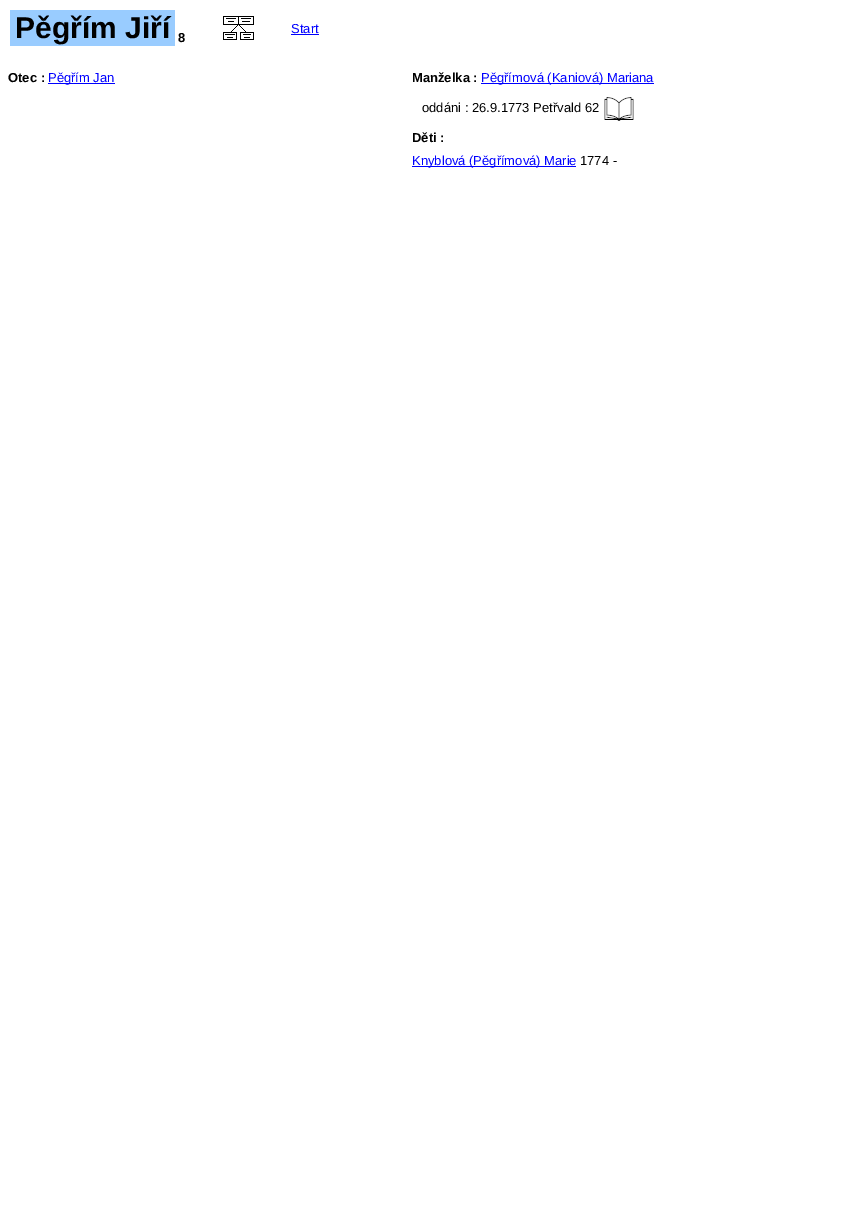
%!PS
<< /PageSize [856 1211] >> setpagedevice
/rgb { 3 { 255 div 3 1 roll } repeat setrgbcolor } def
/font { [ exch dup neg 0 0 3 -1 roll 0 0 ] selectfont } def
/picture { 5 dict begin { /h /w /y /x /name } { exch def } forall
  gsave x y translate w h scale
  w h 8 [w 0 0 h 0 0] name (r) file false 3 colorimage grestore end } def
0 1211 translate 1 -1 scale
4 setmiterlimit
255 255 255 rgb
0 0 856 1211 rectfill
153 204 255 rgb
10 10 165 36 rectfill
(img/1.rgb) 223 16 31 24 picture
[
  [291 34 28 1 0 0 255]
  [48 83 67 1 0 0 255]
  [481 83 173 1 0 0 255]
] { aload pop rgb rectfill } forall
(img/2.rgb) 604 97 30 24 picture
412 166 164 1 rectfill
/LiberationSans-Bold 30 font
0 0 0 rgb
15 38 moveto (Pěgřím Jiří) show
/LiberationSans-Regular 13 font
0 0 255 rgb
291 33 moveto (Start) show
/LiberationSans-Bold 13 font
0 0 0 rgb
178 42 moveto (8) show
8 82 moveto (Otec :) show
/LiberationSans-Regular 13 font
0 0 255 rgb
48 82 moveto (Pěgřím Jan) show
/LiberationSans-Bold 13 font
0 0 0 rgb
412 82 moveto (Manželka :) show
/LiberationSans-Regular 13 font
0 0 255 rgb
481 82 moveto (Pěgřímová \(Kaniová\) Mariana) show
0 0 0 rgb
422 112 moveto (oddáni : 26.9.1773 Petřvald 62) show
/LiberationSans-Bold 13 font
412 142 moveto (Děti :) show
/LiberationSans-Regular 13 font
0 0 255 rgb
412 165 moveto (Knyblová \(Pěgřímová\) Marie) show
0 0 0 rgb
580 165 moveto (1774 -) show
showpage
